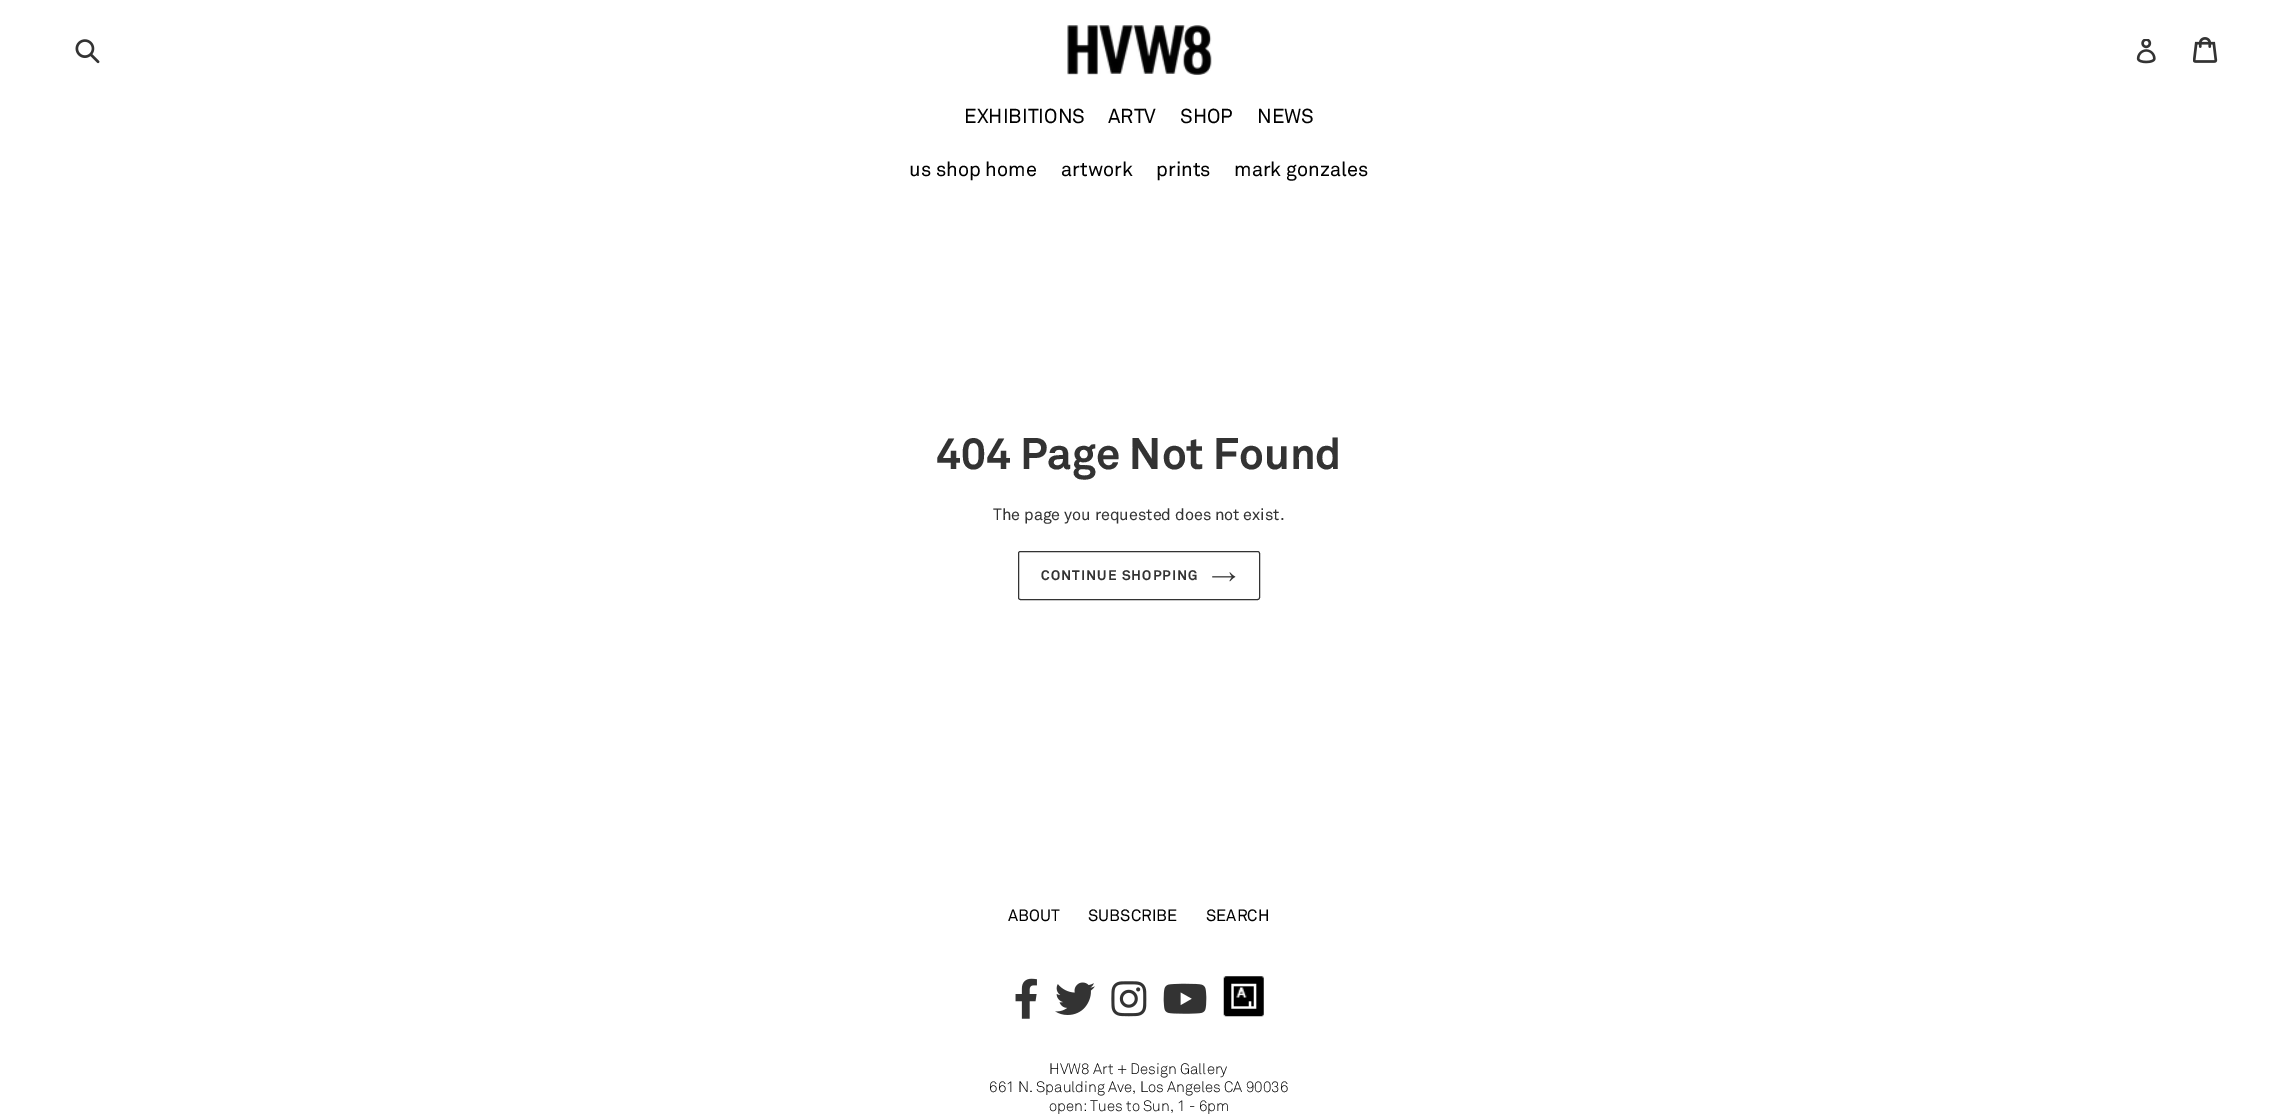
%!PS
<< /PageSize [2277 1120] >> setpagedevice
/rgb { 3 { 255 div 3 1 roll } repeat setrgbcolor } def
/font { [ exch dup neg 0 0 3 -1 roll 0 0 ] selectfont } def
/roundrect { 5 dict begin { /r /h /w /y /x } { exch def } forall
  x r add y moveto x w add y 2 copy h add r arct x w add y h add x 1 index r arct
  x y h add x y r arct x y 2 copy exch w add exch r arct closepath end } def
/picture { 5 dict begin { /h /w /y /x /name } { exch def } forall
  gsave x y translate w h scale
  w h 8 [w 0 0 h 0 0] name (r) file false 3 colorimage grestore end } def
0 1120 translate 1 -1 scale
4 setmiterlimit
255 255 255 rgb
0 0 2277 1120 rectfill
(img/1.rgb) 75 39 25 25 picture
(img/2.rgb) 1067 25 145 50 picture
(img/3.rgb) 2136 39 20 25 picture
(img/4.rgb) 2193 37 25 26 picture
51 51 51 rgb
1018.5 551.5 241 48 2 roundrect stroke
(img/5.rgb) 1212 572 24 10 picture
(img/6.rgb) 1015 978 22 41 picture
(img/7.rgb) 1055 982 40 33 picture
(img/8.rgb) 1111 981 36 36 picture
(img/9.rgb) 1163 983 44 31 picture
(img/10.rgb) 1223 976 41 41 picture
/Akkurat-Regular 20 font
0 0 0 rgb
[
  [(EXHIBITIONS) 964 123]
  [(ARTV) 1108 123]
  [(SHOP) 1180 123]
  [(NEWS) 1257 123]
  [(us shop home) 909 176]
  [(artwork) 1061 176]
  [(prints) 1156 176]
  [(mark gonzales) 1234 176]
] { aload pop moveto show } forall
/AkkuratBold-Bold 43.75 font
51 51 51 rgb
936 469 moveto (404 Page Not Found) show
/Akkurat-Regular 16.25 font
993 520 moveto (The page you requested does not exist.) show
/AkkuratBold-Bold 13.75 font
1041 580 moveto 1.1 0 (CONTINUE SHOPPING) ashow
/Akkurat-Regular 16.25 font
0 0 0 rgb
[
  [(ABOUT) 1008 921]
  [(SUBSCRIBE) 1088 921]
  [(SEARCH) 1206 921]
] { aload pop moveto show } forall
/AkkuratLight-Light 15 font
[
  [(HVW8 Art + Design Gallery) 1049 1074]
  [(661 N. Spaulding Ave, Los Angeles CA 90036) 989 1092]
  [(open: Tues to Sun, 1 - 6pm) 1049 1111]
] { aload pop moveto show } forall
showpage
